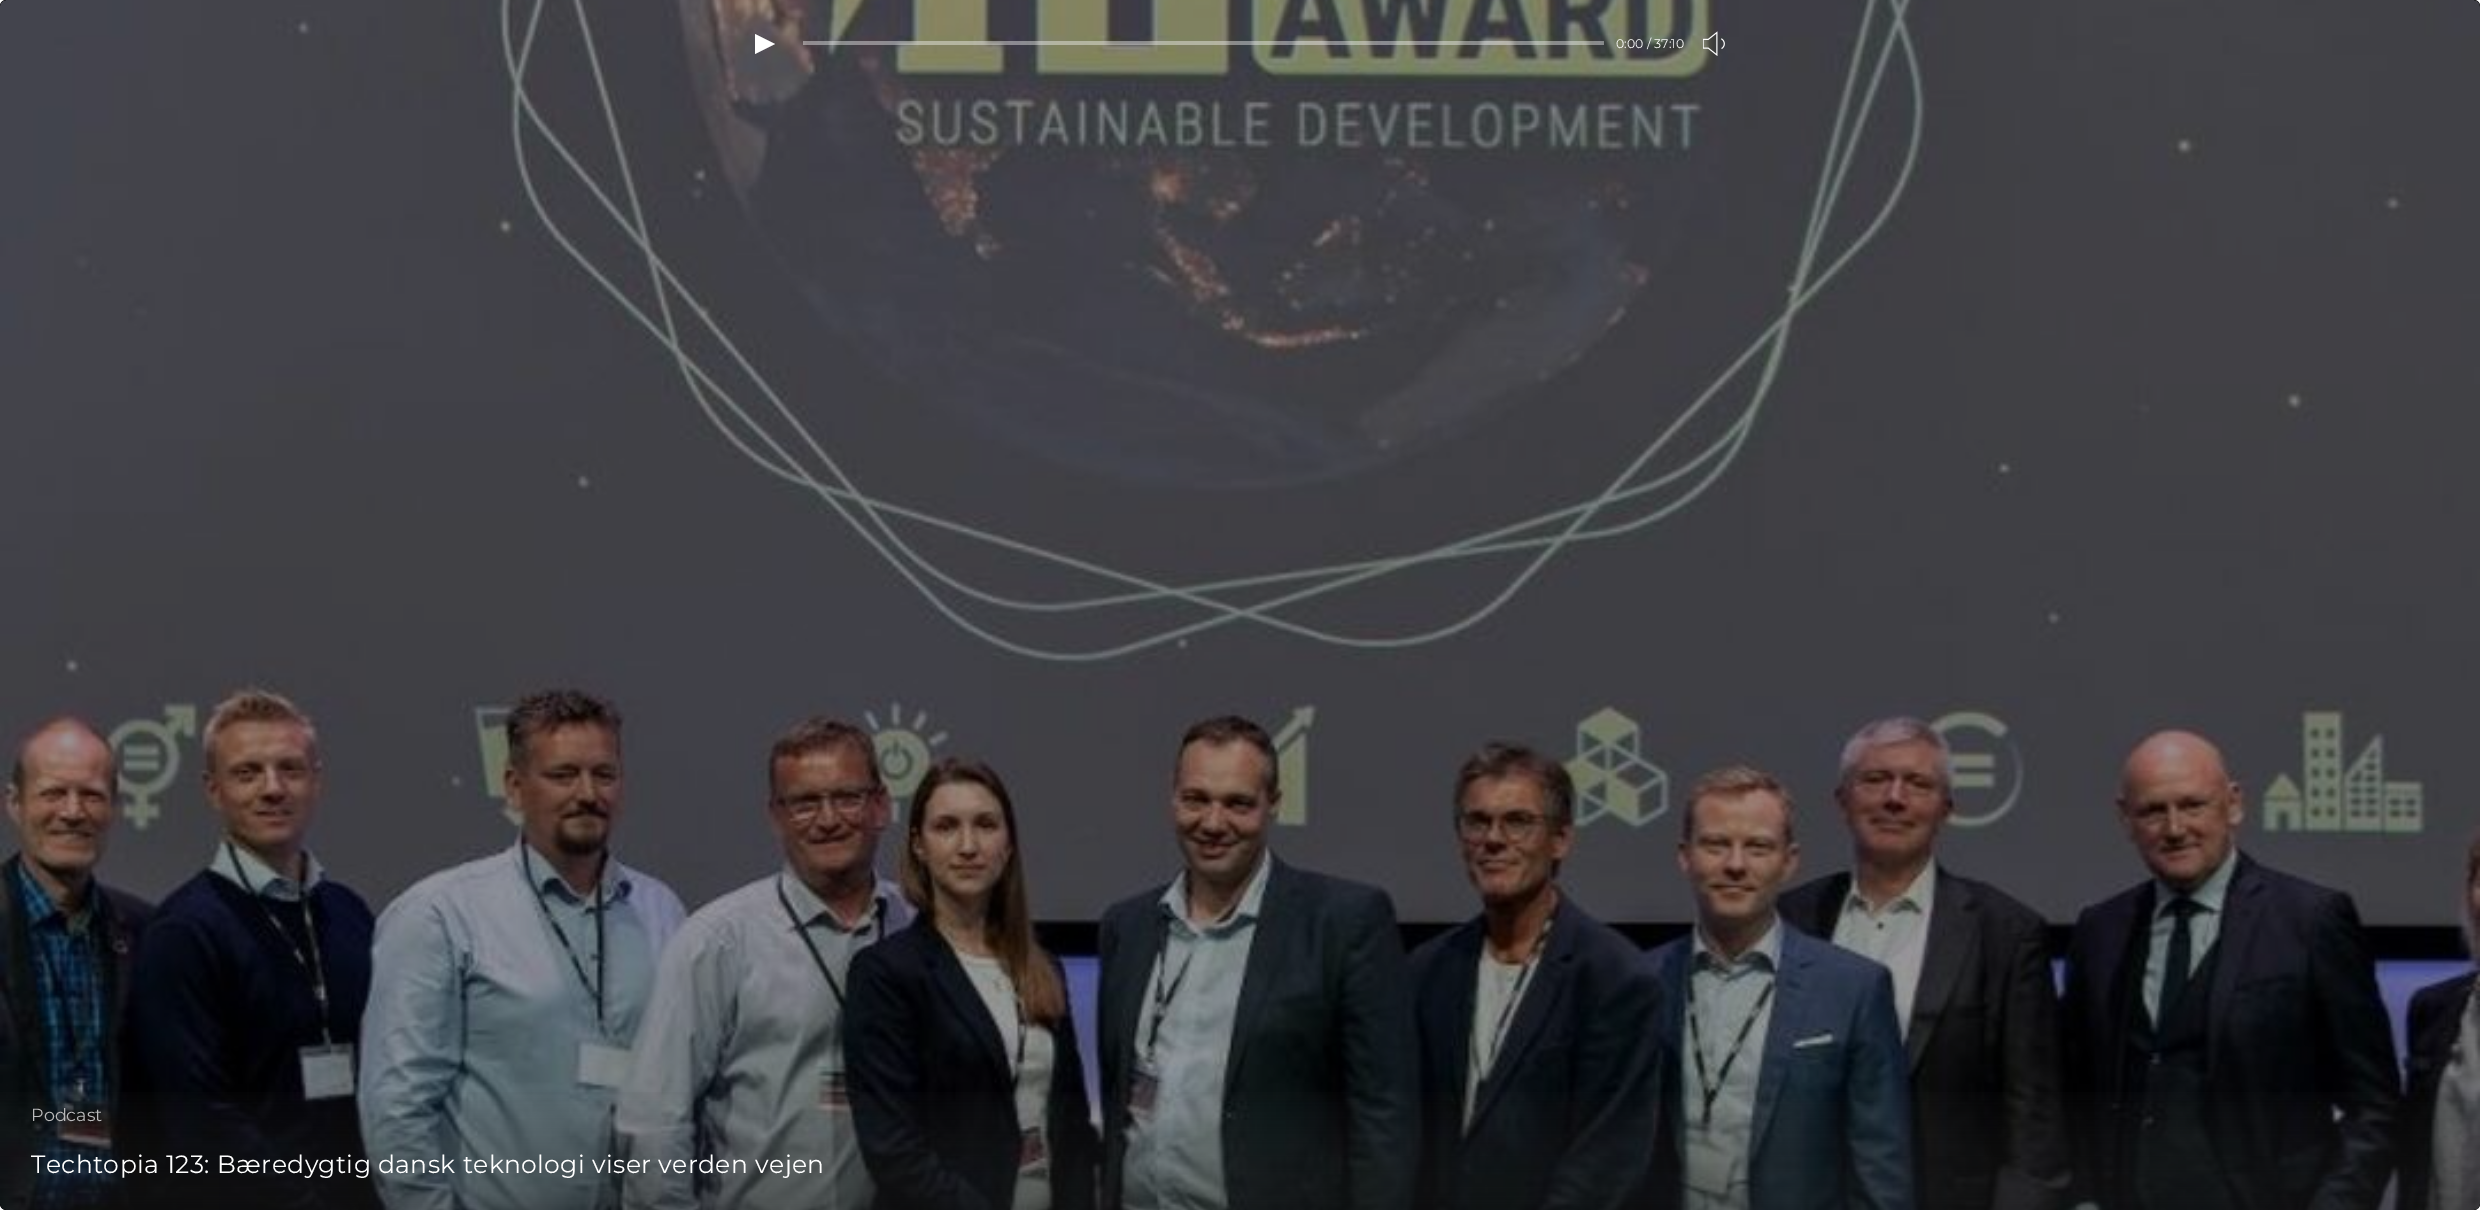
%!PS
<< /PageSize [2480 1210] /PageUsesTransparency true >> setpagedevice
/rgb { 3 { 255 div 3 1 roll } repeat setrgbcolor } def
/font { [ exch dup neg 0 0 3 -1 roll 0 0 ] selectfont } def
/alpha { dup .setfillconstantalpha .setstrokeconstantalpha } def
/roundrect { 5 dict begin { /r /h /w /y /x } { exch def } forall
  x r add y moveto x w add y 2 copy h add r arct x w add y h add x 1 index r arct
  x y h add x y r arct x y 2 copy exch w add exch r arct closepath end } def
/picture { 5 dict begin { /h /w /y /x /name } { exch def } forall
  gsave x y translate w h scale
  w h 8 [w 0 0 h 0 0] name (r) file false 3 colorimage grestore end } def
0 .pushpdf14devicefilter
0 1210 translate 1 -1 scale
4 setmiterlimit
255 255 255 rgb
0 0 2480 1210 rectfill
0 0 0 rgb
0 0 2480 1210 6 roundrect fill
0.4 alpha
0 0 2480 1210 6 roundrect fill
1 alpha
(img/1.rgb) 0 0 2480 1210 picture
0.4 alpha
0 0 2480 1210 6 roundrect fill
1 alpha
255 255 255 rgb
755 34 moveto 755 54 lineto 775 44 lineto closepath eofill
0.4 alpha
803 41 801 4 rectfill
1 alpha
(img/2.rgb) 1703 31 22 25 picture
(img/3.rgb) 0 1092 2480 118 picture
/Montserrat-Regular 12.5 font
1616 48 moveto (0:00 / 37:10) show
/Montserrat-Regular 17.5 font
185 185 186 rgb
31 1121 moveto (Podcast) show
/Montserrat-Regular 25 font
255 255 255 rgb
31 1173 moveto 0.38 0 (Techtopia 123: Bæredygtig dansk teknologi viser verden vejen) ashow
.poppdf14devicefilter showpage
